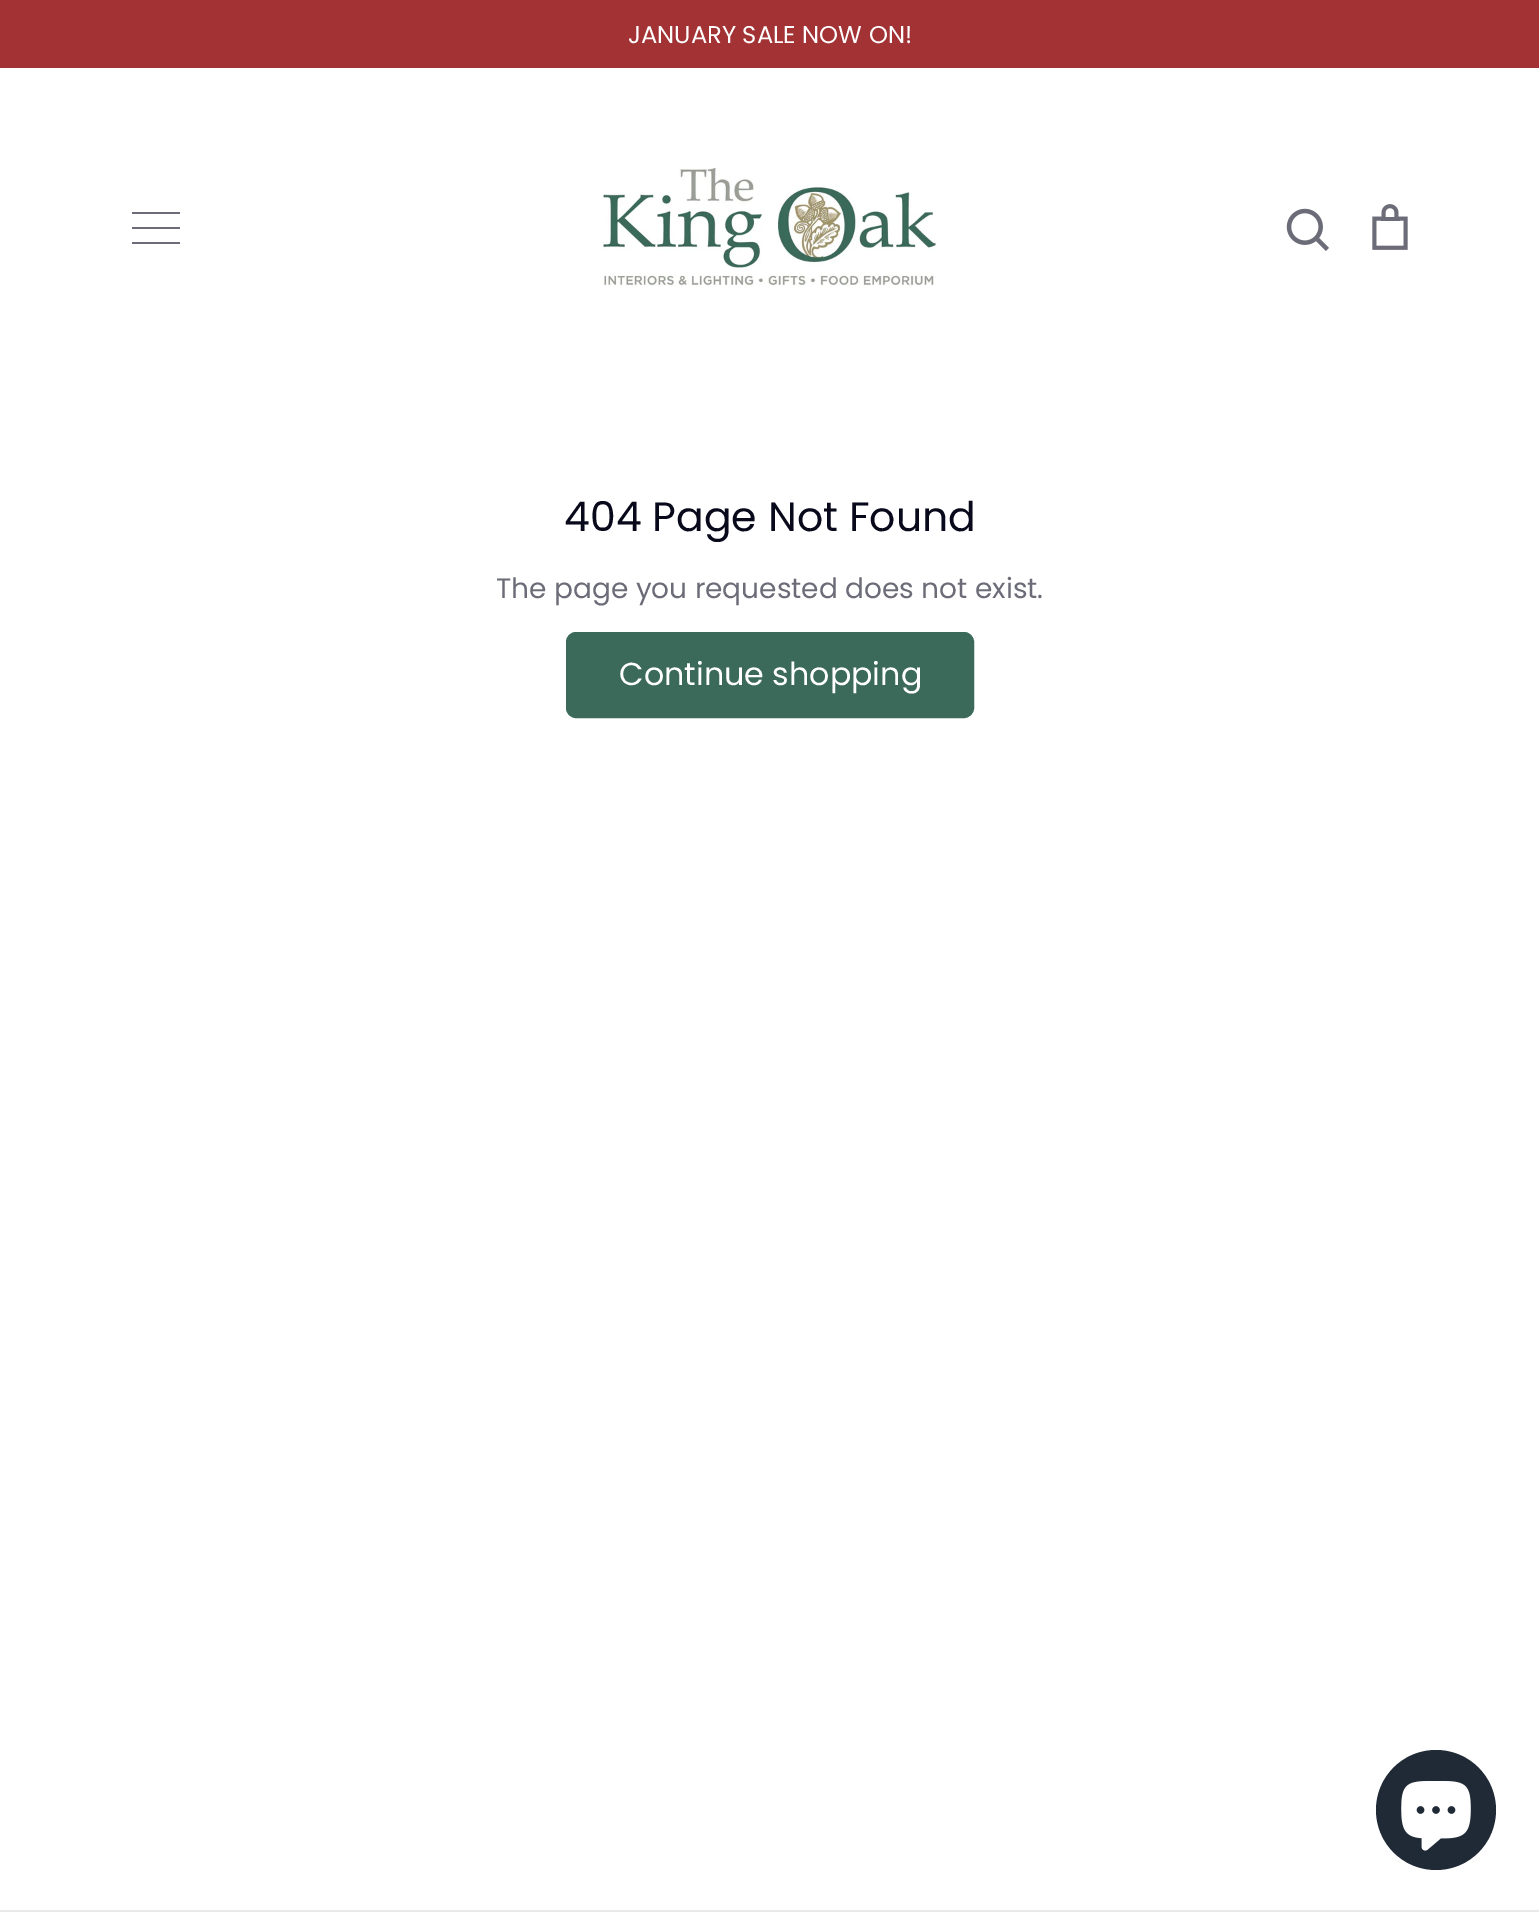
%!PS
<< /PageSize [1539 1912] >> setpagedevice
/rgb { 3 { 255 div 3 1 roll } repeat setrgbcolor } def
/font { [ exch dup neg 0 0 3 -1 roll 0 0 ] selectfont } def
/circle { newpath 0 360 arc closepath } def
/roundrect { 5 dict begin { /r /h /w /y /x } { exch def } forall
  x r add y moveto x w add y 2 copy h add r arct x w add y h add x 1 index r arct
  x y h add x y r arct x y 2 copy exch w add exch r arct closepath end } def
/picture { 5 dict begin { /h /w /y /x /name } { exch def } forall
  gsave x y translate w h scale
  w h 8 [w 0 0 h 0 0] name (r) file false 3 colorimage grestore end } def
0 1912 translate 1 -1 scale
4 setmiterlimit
255 255 255 rgb
0 0 1539 1912 rectfill
[
  [0 0 1539 68 162 50 52]
  [132 212 48 2 107 108 119]
  [132 227 48 2 107 108 119]
  [132 242 48 2 107 108 119]
] { aload pop rgb rectfill } forall
(img/1.rgb) 602 168 336 118 picture
(img/2.rgb) 1286 208 43 43 picture
(img/3.rgb) 1372 204 36 46 picture
233 233 235 rgb
0 1910 1539 2 rectfill
59 106 90 rgb
567 633 406 84 9 roundrect gsave fill grestore
2 setlinewidth
stroke
32 42 54 rgb
1436 1810 60 circle fill
(img/4.rgb) 1401 1781 70 70 picture
/Poppins-Regular 24.25 font
255 255 255 rgb
628 43 moveto (JANUARY SALE NOW ON!) show
/Poppins-Regular 41 font
8 10 28 rgb
564 531 moveto (404 Page Not Found) show
/Poppins-Regular 28 font
107 108 119 rgb
496 598 moveto (The page you requested does not exist.) show
/Poppins-Regular 31.75 font
255 255 255 rgb
619 685 moveto (Continue shopping) show
showpage
